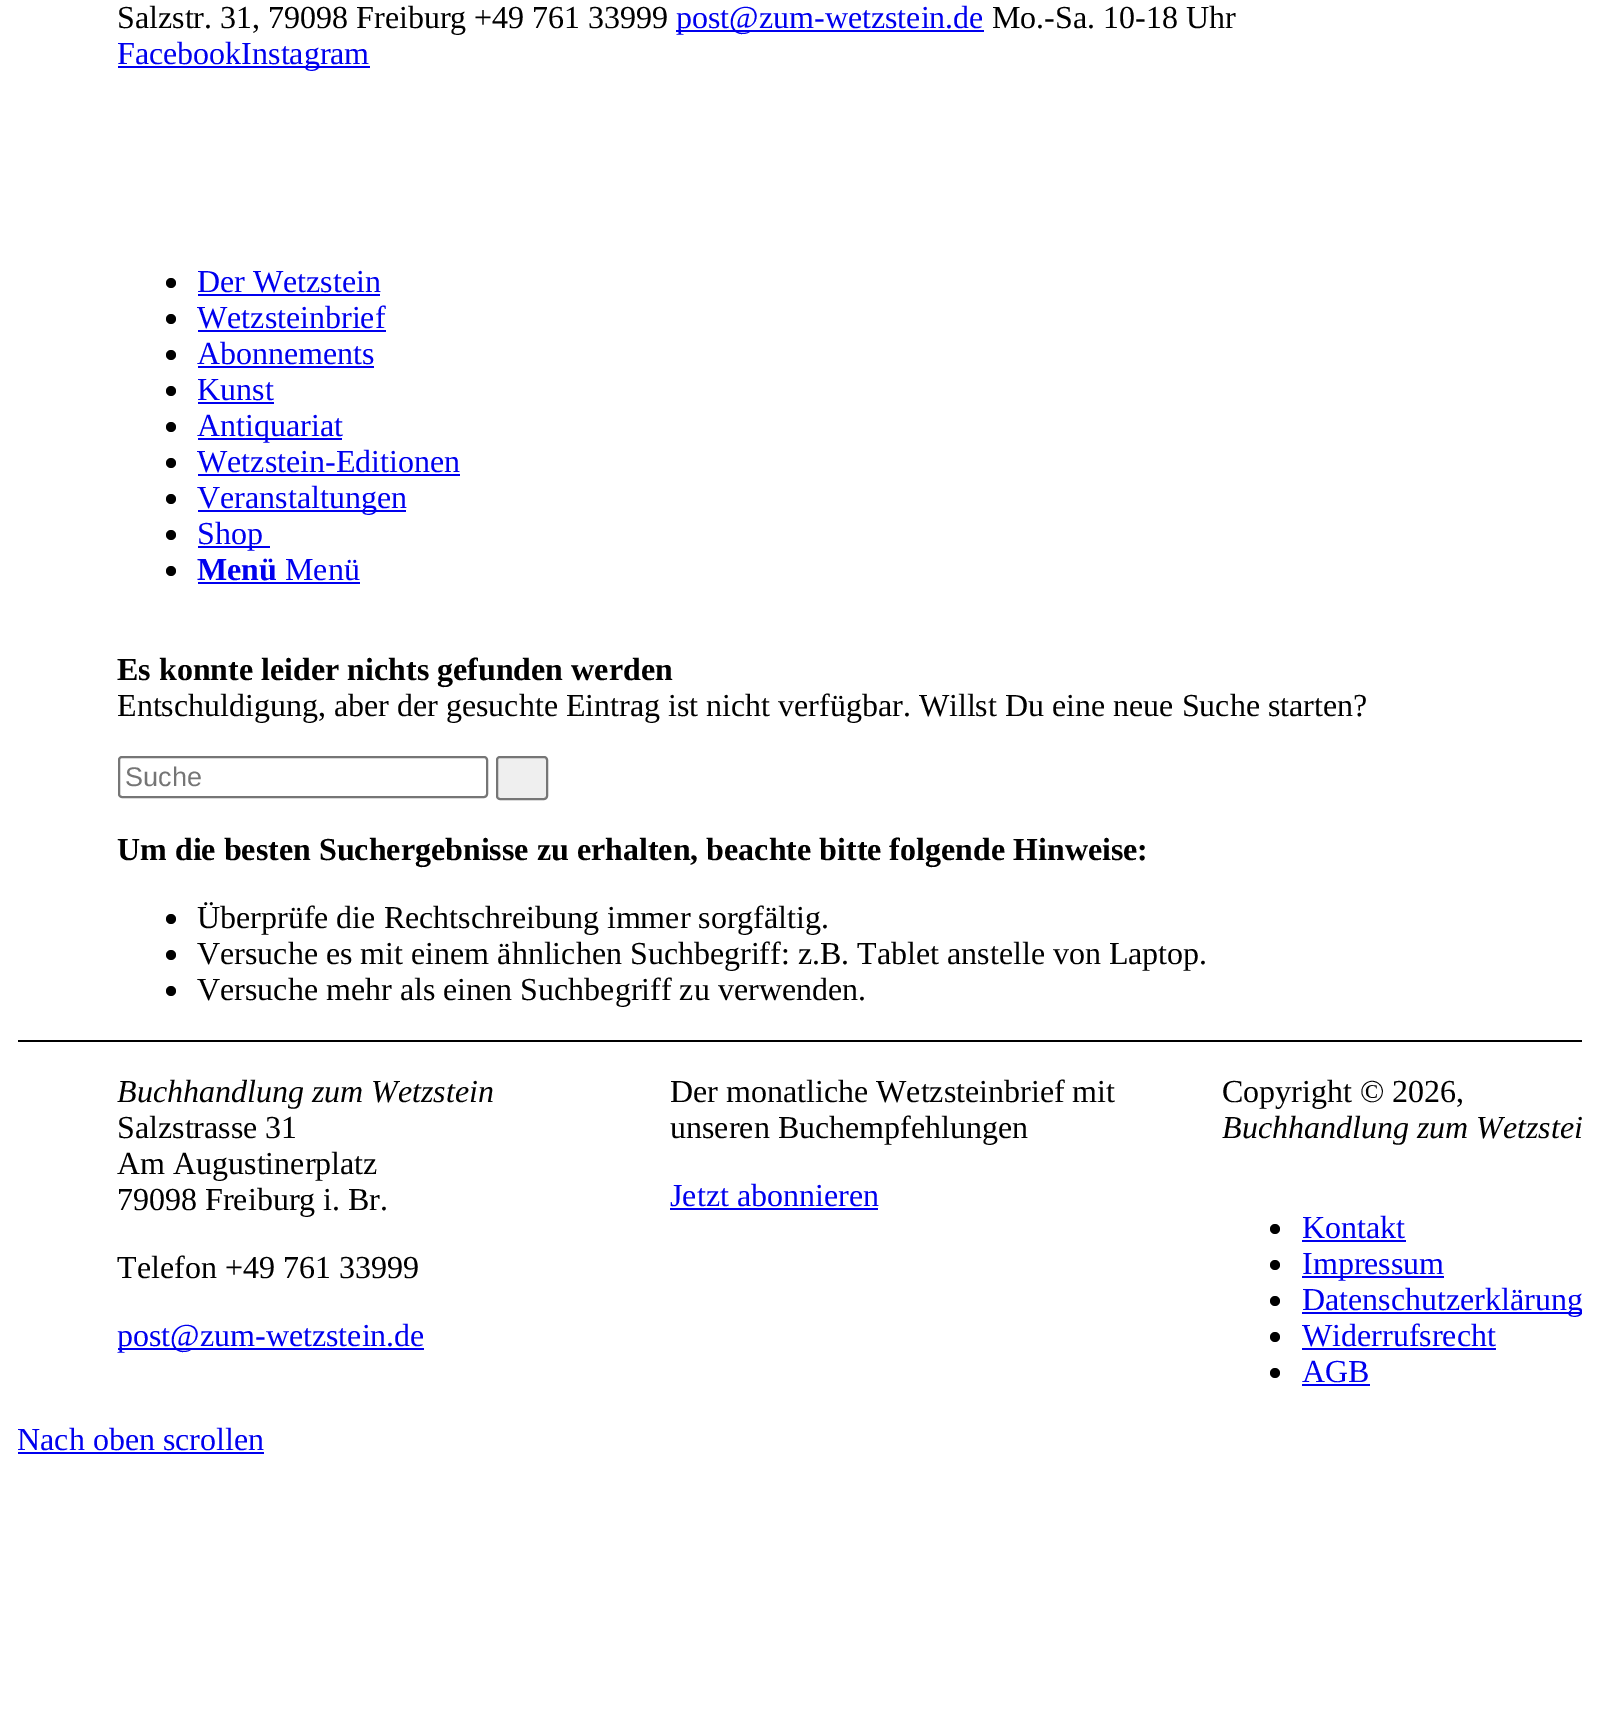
%!PS
<< /PageSize [1598 1726] >> setpagedevice
/rgb { 3 { 255 div 3 1 roll } repeat setrgbcolor } def
/font { [ exch dup neg 0 0 3 -1 roll 0 0 ] selectfont } def
/circle { newpath 0 360 arc closepath } def
/roundrect { 5 dict begin { /r /h /w /y /x } { exch def } forall
  x r add y moveto x w add y 2 copy h add r arct x w add y h add x 1 index r arct
  x y h add x y r arct x y 2 copy exch w add exch r arct closepath end } def
0 1726 translate 1 -1 scale
4 setmiterlimit
255 255 255 rgb
0 0 1598 1726 rectfill
0 0 238 rgb
676 30 308 2 rectfill
118 66 252 2 rectfill
0 0 0 rgb
171 283 5 circle fill
0 0 238 rgb
198 294 182 2 rectfill
0 0 0 rgb
171 319 5 circle fill
0 0 238 rgb
198 330 188 2 rectfill
0 0 0 rgb
171 355 5 circle fill
0 0 238 rgb
198 366 176 2 rectfill
0 0 0 rgb
171 391 5 circle fill
0 0 238 rgb
198 402 76 2 rectfill
0 0 0 rgb
171 427 5 circle fill
0 0 238 rgb
198 438 144 2 rectfill
0 0 0 rgb
171 463 5 circle fill
0 0 238 rgb
198 474 262 2 rectfill
0 0 0 rgb
171 499 5 circle fill
0 0 238 rgb
198 510 208 2 rectfill
0 0 0 rgb
171 535 5 circle fill
0 0 238 rgb
198 546 72 2 rectfill
0 0 0 rgb
171 571 5 circle fill
0 0 238 rgb
198 582 162 2 rectfill
118 118 118 rgb
2 setlinewidth
119 757 368 40 3 roundrect stroke
239 239 239 rgb
497 757 50 42 3 roundrect gsave fill grestore
118 118 118 rgb
stroke
0 0 0 rgb
171 919 5 circle fill
171 955 5 circle fill
171 991 5 circle fill
[
  [18 1040 1564 2 0 0 0]
  [118 1348 306 2 0 0 238]
  [670 1208 208 2 0 0 238]
] { aload pop rgb rectfill } forall
0 0 0 rgb
1275 1229 5 circle fill
0 0 238 rgb
1302 1240 104 2 rectfill
0 0 0 rgb
1275 1265 5 circle fill
0 0 238 rgb
1302 1276 142 2 rectfill
0 0 0 rgb
1275 1301 5 circle fill
0 0 238 rgb
1302 1312 280 2 rectfill
0 0 0 rgb
1275 1337 5 circle fill
0 0 238 rgb
1302 1348 194 2 rectfill
0 0 0 rgb
1275 1373 5 circle fill
0 0 238 rgb
1302 1384 68 2 rectfill
18 1452 246 2 rectfill
/LiberationSerif-Regular 32 font
0 0 0 rgb
117 28 moveto (Salzstr. 31, 79098 Freiburg +49 761 33999) show
0 0 238 rgb
676 28 moveto (post@zum-wetzstein.de) show
0 0 0 rgb
992 28 moveto (Mo.-Sa. 10-18 Uhr) show
0 0 238 rgb
[
  [(FacebookInstagram) 117 64]
  [(Der Wetzstein) 197 292]
  [(Wetzsteinbrief) 197 328]
  [(Abonnements) 197 364]
  [(Kunst) 197 400]
  [(Antiquariat) 197 436]
  [(Wetzstein-Editionen) 197 472]
  [(Veranstaltungen) 197 508]
  [(Shop) 197 544]
] { aload pop moveto show } forall
/LiberationSerif-Bold 32 font
197 580 moveto (Menü) show
/LiberationSerif-Regular 32 font
285 580 moveto (Menü) show
/LiberationSerif-Bold 32 font
0 0 0 rgb
117 680 moveto (Es konnte leider nichts gefunden werden) show
/LiberationSerif-Regular 32 font
117 716 moveto (Entschuldigung, aber der gesuchte Eintrag ist nicht verfügbar. Willst Du eine neue Suche starten?) show
/LiberationSans-Regular 27 font
117 117 117 rgb
125 786 moveto (Suche) show
/LiberationSerif-Bold 32 font
0 0 0 rgb
117 860 moveto (Um die besten Suchergebnisse zu erhalten, beachte bitte folgende Hinweise:) show
/LiberationSerif-Regular 32 font
[
  [(Überprüfe die Rechtschreibung immer sorgfältig.) 197 928]
  [(Versuche es mit einem ähnlichen Suchbegriff: z.B. Tablet anstelle von Laptop.) 197 964]
  [(Versuche mehr als einen Suchbegriff zu verwenden.) 197 1000]
] { aload pop moveto show } forall
/LiberationSerif-Italic 32 font
117 1102 moveto (Buchhandlung zum Wetzstein) show
/LiberationSerif-Regular 32 font
[
  [(Salzstrasse 31) 117 1138]
  [(Am Augustinerplatz) 117 1174]
  [(79098 Freiburg i. Br.) 117 1210]
  [(Telefon +49 761 33999) 117 1278]
] { aload pop moveto show } forall
0 0 238 rgb
117 1346 moveto (post@zum-wetzstein.de) show
0 0 0 rgb
670 1102 moveto (Der monatliche Wetzsteinbrief mit) show
670 1138 moveto (unseren Buchempfehlungen) show
0 0 238 rgb
670 1206 moveto (Jetzt abonnieren) show
0 0 0 rgb
1222 1102 moveto (Copyright © 2026,) show
/LiberationSerif-Italic 32 font
1222 1138 moveto (Buchhandlung zum Wetzstei) show
/LiberationSerif-Regular 32 font
0 0 238 rgb
1302 1238 moveto (Kontakt) show
1302 1274 moveto (Impressum) show
gsave
18 0 1564 1422 rectclip
1302 1310 moveto (Datenschutzerklärung) show
grestore
[
  [(Widerrufsrecht) 1302 1346]
  [(AGB) 1302 1382]
  [(Nach oben scrollen) 17 1450]
] { aload pop moveto show } forall
showpage
